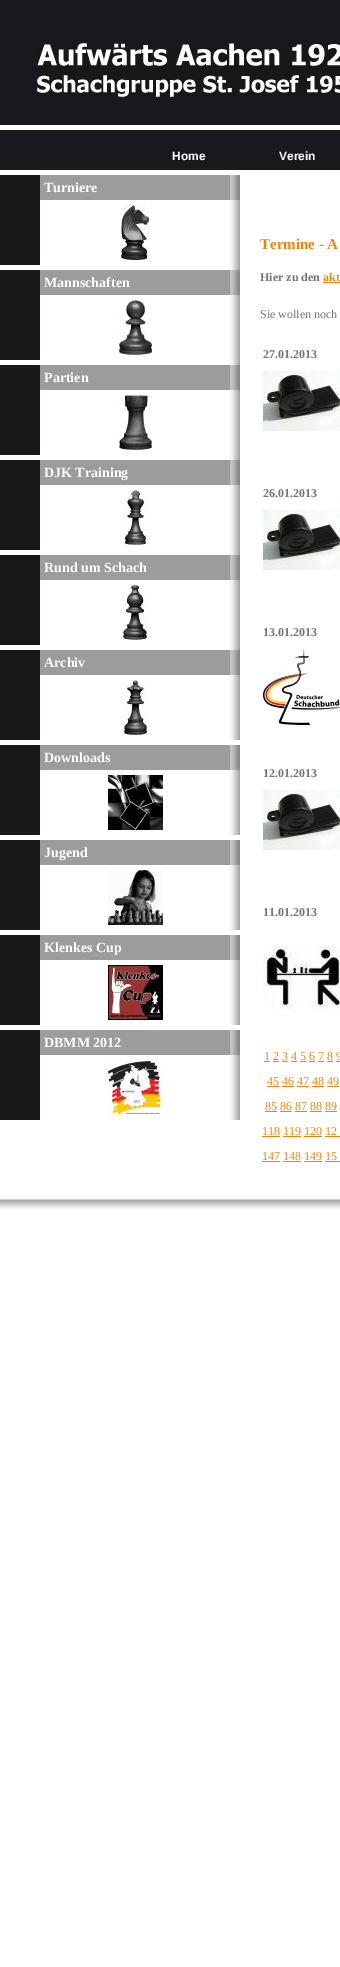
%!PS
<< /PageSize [340 1967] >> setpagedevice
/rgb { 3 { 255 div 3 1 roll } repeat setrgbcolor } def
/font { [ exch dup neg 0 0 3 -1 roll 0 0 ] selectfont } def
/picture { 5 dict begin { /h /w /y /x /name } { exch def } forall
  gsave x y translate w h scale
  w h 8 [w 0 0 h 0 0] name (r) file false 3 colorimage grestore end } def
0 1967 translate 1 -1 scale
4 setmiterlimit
255 255 255 rgb
0 0 340 1967 rectfill
26 23 31 rgb
0 0 340 125 rectfill
(img/1.rgb) 37 43 303 54 picture
[
  [0 130 340 40 26 23 31]
  [0 175 40 90 26 23 27]
  [40 175 190 25 156 156 158]
] { aload pop rgb rectfill } forall
(img/2.rgb) 230 175 10 25 picture
(img/3.rgb) 121 205 28 55 picture
(img/4.rgb) 230 200 10 65 picture
(img/5.rgb) 230 265 10 5 picture
26 23 27 rgb
0 270 40 90 rectfill
156 156 158 rgb
40 270 190 25 rectfill
(img/2.rgb) 230 270 10 25 picture
(img/6.rgb) 119 300 33 55 picture
(img/4.rgb) 230 295 10 65 picture
(img/5.rgb) 230 360 10 5 picture
26 23 27 rgb
0 365 40 90 rectfill
156 156 158 rgb
40 365 190 25 rectfill
(img/2.rgb) 230 365 10 25 picture
(img/7.rgb) 119 395 33 55 picture
(img/4.rgb) 230 390 10 65 picture
(img/5.rgb) 230 455 10 5 picture
26 23 27 rgb
0 460 40 90 rectfill
156 156 158 rgb
40 460 190 25 rectfill
(img/2.rgb) 230 460 10 25 picture
(img/8.rgb) 125 490 21 55 picture
(img/4.rgb) 230 485 10 65 picture
(img/5.rgb) 230 550 10 5 picture
26 23 27 rgb
0 555 40 90 rectfill
156 156 158 rgb
40 555 190 25 rectfill
(img/2.rgb) 230 555 10 25 picture
(img/9.rgb) 123 585 24 55 picture
(img/4.rgb) 230 580 10 65 picture
(img/5.rgb) 230 645 10 5 picture
26 23 27 rgb
0 650 40 90 rectfill
156 156 158 rgb
40 650 190 25 rectfill
(img/2.rgb) 230 650 10 25 picture
(img/10.rgb) 124 680 23 55 picture
(img/4.rgb) 230 675 10 65 picture
26 23 27 rgb
0 745 40 90 rectfill
156 156 158 rgb
40 745 190 25 rectfill
(img/2.rgb) 230 745 10 25 picture
(img/11.rgb) 108 775 55 55 picture
(img/4.rgb) 230 770 10 65 picture
26 23 27 rgb
0 840 40 90 rectfill
156 156 158 rgb
40 840 190 25 rectfill
(img/2.rgb) 230 840 10 25 picture
(img/12.rgb) 108 870 55 55 picture
(img/4.rgb) 230 865 10 65 picture
26 23 27 rgb
0 935 40 90 rectfill
156 156 158 rgb
40 935 190 25 rectfill
(img/2.rgb) 230 935 10 25 picture
(img/13.rgb) 108 965 55 55 picture
(img/4.rgb) 230 960 10 65 picture
26 23 27 rgb
0 1030 40 90 rectfill
156 156 158 rgb
40 1030 190 25 rectfill
(img/2.rgb) 230 1030 10 25 picture
(img/14.rgb) 108 1061 55 54 picture
(img/4.rgb) 230 1055 10 65 picture
229 136 16 rgb
323 282 17 1 rectfill
(img/15.rgb) 263 371 77 60 picture
(img/15.rgb) 263 510 77 60 picture
(img/16.rgb) 263 649 77 76 picture
(img/15.rgb) 263 790 77 60 picture
(img/17.rgb) 263 945 77 64 picture
[
  [264 1061 6 1 229 136 16]
  [273 1061 6 1 229 136 16]
  [282 1061 6 1 229 136 16]
  [291 1061 6 1 229 136 16]
  [300 1061 6 1 229 136 16]
  [309 1061 6 1 229 136 16]
  [318 1061 6 1 229 136 16]
  [327 1061 6 1 229 136 16]
  [336 1061 4 1 229 136 16]
  [267 1086 12 1 229 136 16]
  [282 1086 12 1 229 136 16]
  [297 1086 12 1 229 136 16]
  [312 1086 12 1 229 136 16]
  [327 1086 12 1 229 136 16]
  [265 1111 12 1 229 136 16]
  [280 1111 12 1 229 136 16]
  [295 1111 12 1 229 136 16]
  [310 1111 12 1 229 136 16]
  [325 1111 12 1 229 136 16]
  [262 1136 18 1 229 136 16]
  [283 1136 18 1 229 136 16]
  [304 1136 18 1 229 136 16]
  [325 1136 15 1 229 136 16]
  [262 1161 18 1 229 136 16]
  [283 1161 18 1 229 136 16]
  [304 1161 18 1 229 136 16]
  [325 1161 15 1 229 136 16]
] { aload pop rgb rectfill } forall
(img/18.rgb) 0 1199 340 10 picture
/LiberationSans-Bold 12 font
255 255 255 rgb
172 160 moveto (Home) show
279 160 moveto (Verein) show
/LiberationSerif-Bold 14 font
[
  [(Turniere) 44 192]
  [(Mannschaften) 44 287]
  [(Partien) 44 382]
  [(DJK Training) 44 477]
  [(Rund um Schach) 44 572]
  [(Archiv) 44 667]
  [(Downloads) 44 762]
  [(Jugend) 44 857]
  [(Klenkes Cup) 44 952]
  [(DBMM 2012) 44 1047]
] { aload pop moveto show } forall
/LiberationSerif-Bold 15 font
229 136 16 rgb
260 249 moveto (Termine - A) show
/LiberationSerif-Bold 12 font
116 116 116 rgb
260 281 moveto (Hier zu den) show
229 136 16 rgb
323 281 moveto (akt) show
/LiberationSerif-Regular 12 font
116 116 116 rgb
260 318 moveto (Sie wollen noch) show
/LiberationSerif-Bold 12 font
[
  [(27.01.2013) 263 358]
  [(26.01.2013) 263 497]
  [(13.01.2013) 263 636]
  [(12.01.2013) 263 777]
  [(11.01.2013) 263 916]
] { aload pop moveto show } forall
/LiberationSerif-Regular 12 font
229 136 16 rgb
[
  [(1 2 3 4 5 6 7 8 9) 264 1060]
  [(45 46 47 48 49) 267 1085]
  [(85 86 87 88 89) 265 1110]
  [(118 119 120 12) 262 1135]
  [(147 148 149 15) 262 1160]
] { aload pop moveto show } forall
showpage
